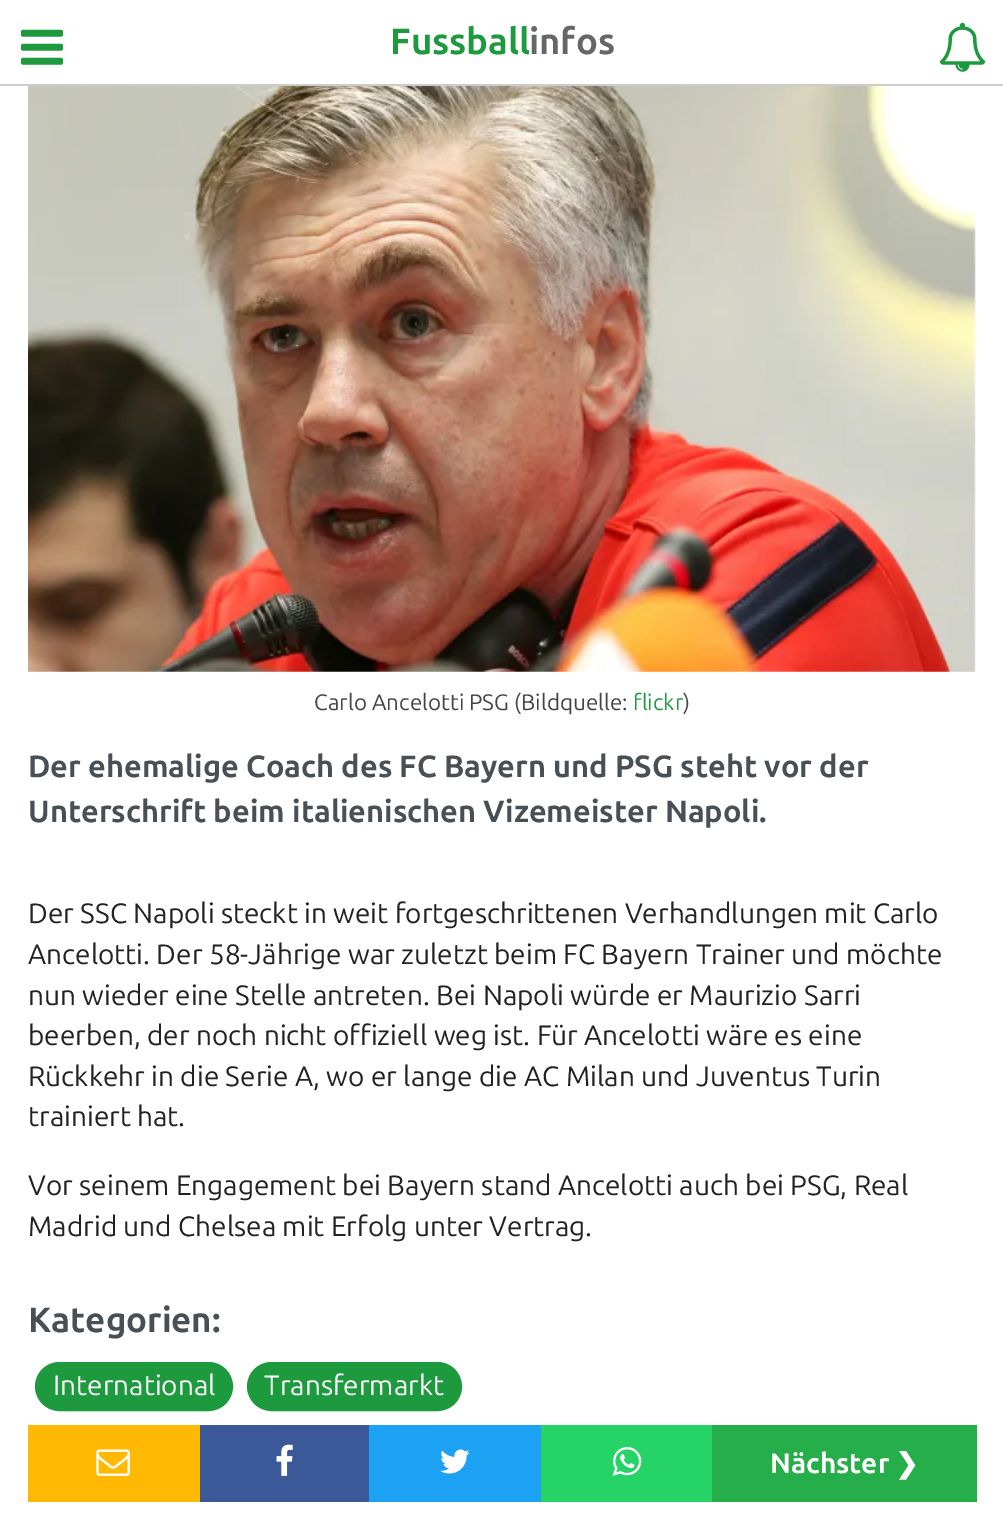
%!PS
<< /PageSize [1003 1536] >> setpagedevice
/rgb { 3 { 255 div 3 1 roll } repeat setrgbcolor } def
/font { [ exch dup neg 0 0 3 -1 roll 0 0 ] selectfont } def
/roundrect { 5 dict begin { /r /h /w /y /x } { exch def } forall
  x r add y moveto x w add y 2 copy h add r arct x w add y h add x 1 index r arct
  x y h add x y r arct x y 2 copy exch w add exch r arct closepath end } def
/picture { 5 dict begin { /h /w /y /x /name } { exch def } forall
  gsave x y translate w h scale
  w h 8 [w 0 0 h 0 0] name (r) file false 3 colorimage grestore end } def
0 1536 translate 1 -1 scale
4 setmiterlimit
255 255 255 rgb
0 0 1003 1536 rectfill
204 204 204 rgb
0 84 1003 2 rectfill
(img/1.rgb) 21 29 42 36 picture
(img/2.rgb) 939 22 47 50 picture
(img/3.rgb) 28 86 949 586 picture
29 153 62 rgb
37 1364 194 45 22.5 roundrect gsave fill grestore
4 setlinewidth
stroke
249 1364 211 45 22.5 roundrect gsave fill grestore
stroke
255 185 3 rgb
28 1425 172 77 rectfill
(img/4.rgb) 96 1449 34 27 picture
59 89 152 rgb
200 1425 169 77 rectfill
(img/5.rgb) 276 1444 17 32 picture
29 161 242 rgb
369 1425 172 77 rectfill
(img/6.rgb) 440 1449 30 25 picture
37 211 102 rgb
541 1425 171 77 rectfill
(img/7.rgb) 612 1447 30 29 picture
38 174 75 rgb
712 1425 265 77 rectfill
/Ubuntu-Bold 36.5 font
29 153 62 rgb
390 54 moveto (Fussball) show
102 102 102 rgb
529 54 moveto (infos) show
/Ubuntu-Regular 22.4 font
68 68 68 rgb
314 710 moveto (Carlo Ancelotti PSG \(Bildquelle:) show
29 153 62 rgb
633 710 moveto (flickr) show
68 68 68 rgb
683 710 moveto (\)) show
/Ubuntu-Bold 30.8 font
72 80 85 rgb
28 777 moveto (Der ehemalige Coach des FC Bayern und PSG steht vor der) show
28 822 moveto (Unterschrift beim italienischen Vizemeister Napoli.) show
/Ubuntu-Regular 28 font
34 34 34 rgb
[
  [(Der SSC Napoli steckt in weit fortgeschrittenen Verhandlungen mit Carlo) 28 923]
  [(Ancelotti. Der 58-Jährige war zuletzt beim FC Bayern Trainer und möchte) 28 964]
  [(nun wieder eine Stelle antreten. Bei Napoli würde er Maurizio Sarri) 28 1005]
  [(beerben, der noch nicht offiziell weg ist. Für Ancelotti wäre es eine) 28 1045]
  [(Rückkehr in die Serie A, wo er lange die AC Milan und Juventus Turin) 28 1086]
  [(trainiert hat.) 28 1126]
  [(Vor seinem Engagement bei Bayern stand Ancelotti auch bei PSG, Real) 28 1195]
  [(Madrid und Chelsea mit Erfolg unter Vertrag.) 28 1236]
] { aload pop moveto show } forall
/Ubuntu-Bold 35 font
72 80 85 rgb
28 1332 moveto (Kategorien:) show
/Ubuntu-Regular 28 font
255 255 255 rgb
53 1395 moveto (International) show
264 1395 moveto (Transfermarkt) show
/Ubuntu-Bold 28 font
770 1473 moveto (Nächster) show
/DejaVuSans-Bold 28 font
895 1473 moveto (❯) show
showpage
